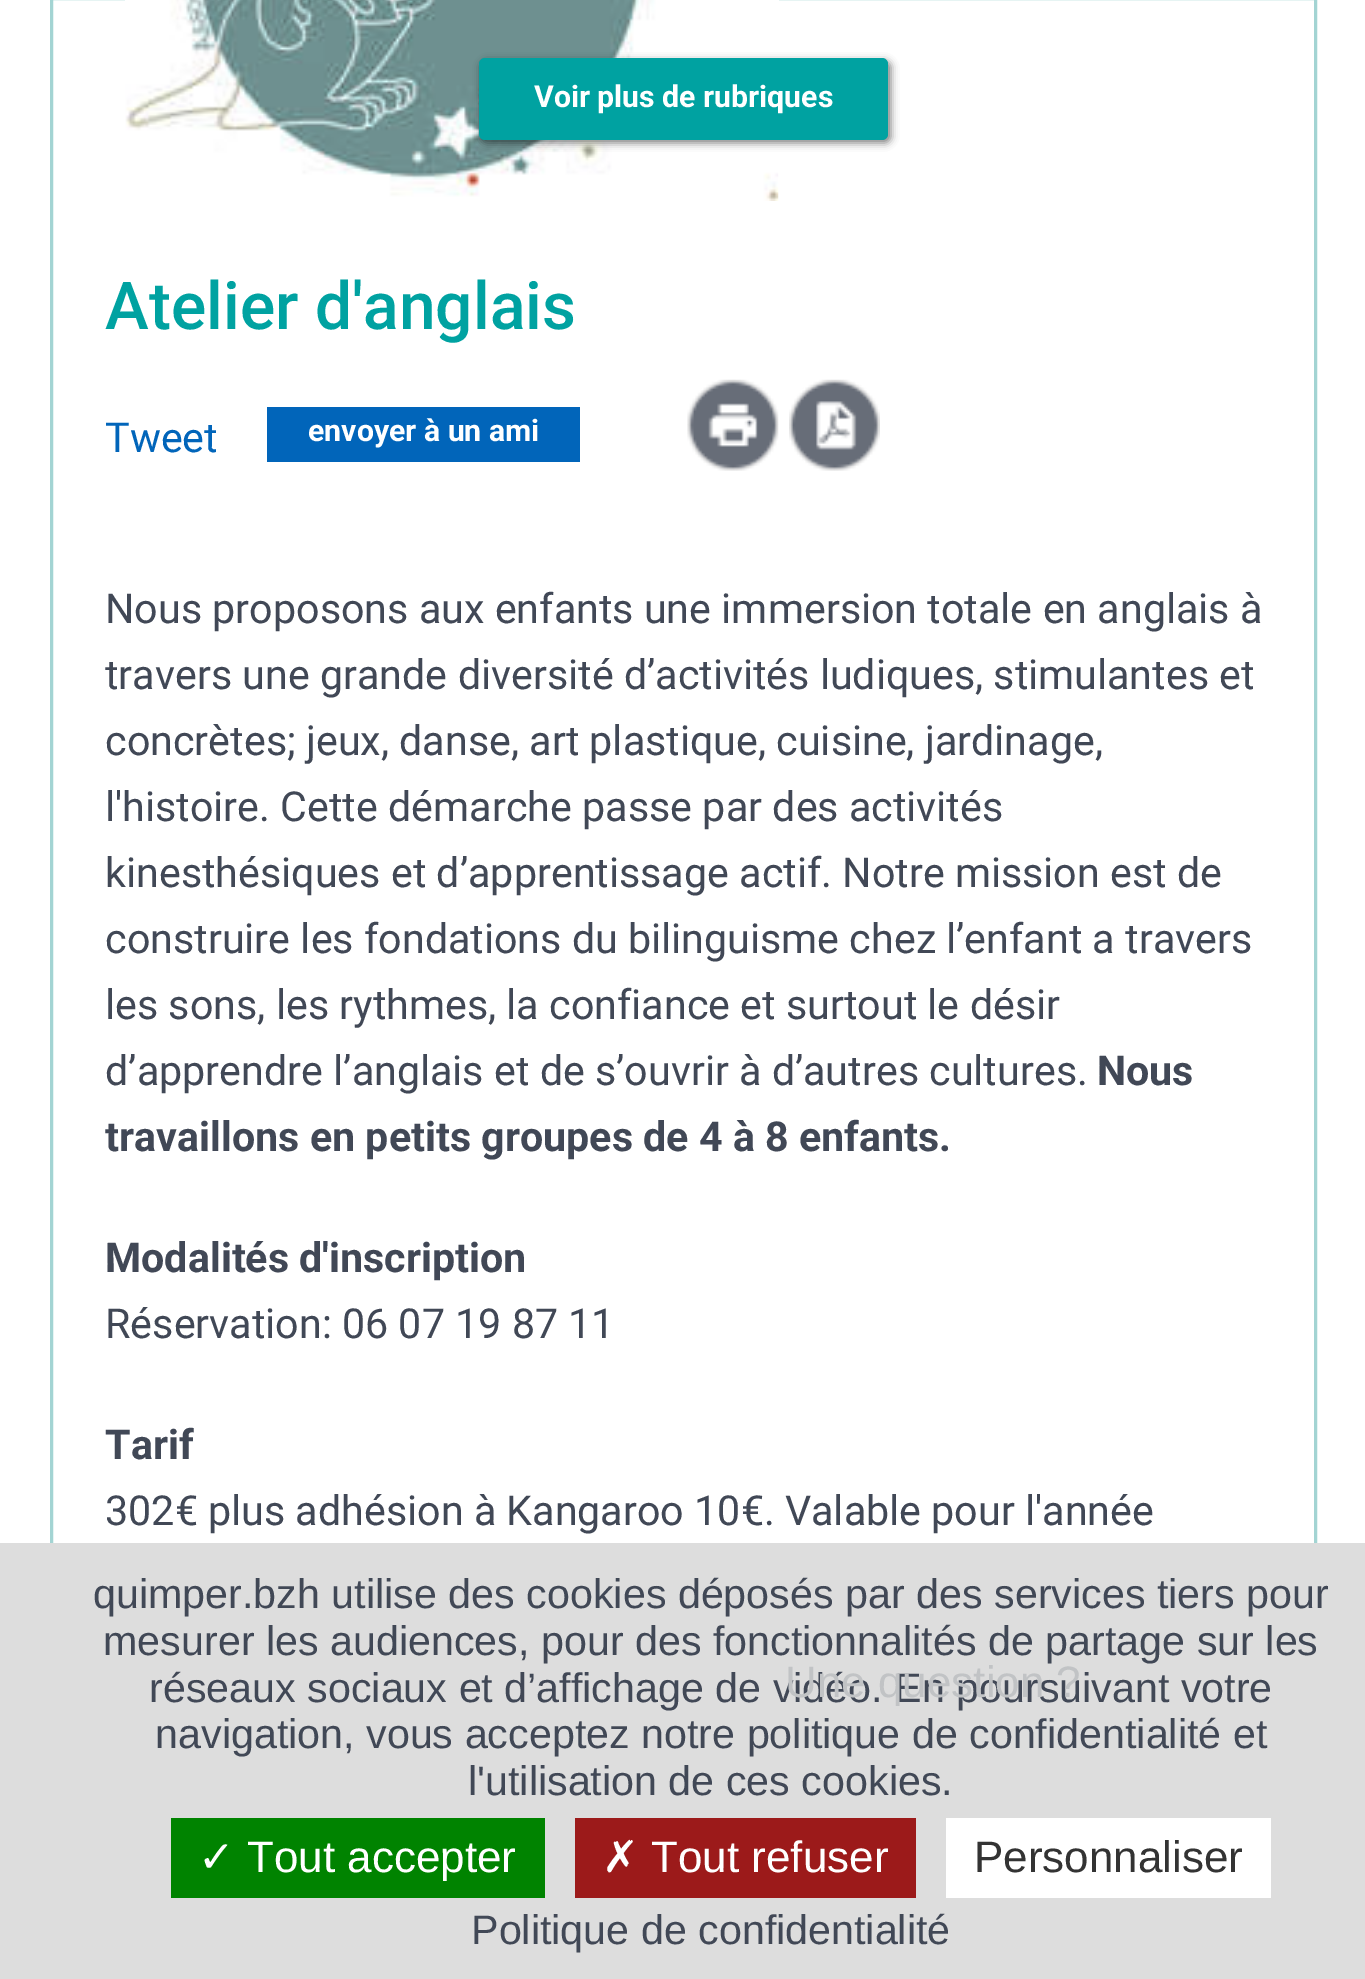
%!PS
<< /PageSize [1365 1979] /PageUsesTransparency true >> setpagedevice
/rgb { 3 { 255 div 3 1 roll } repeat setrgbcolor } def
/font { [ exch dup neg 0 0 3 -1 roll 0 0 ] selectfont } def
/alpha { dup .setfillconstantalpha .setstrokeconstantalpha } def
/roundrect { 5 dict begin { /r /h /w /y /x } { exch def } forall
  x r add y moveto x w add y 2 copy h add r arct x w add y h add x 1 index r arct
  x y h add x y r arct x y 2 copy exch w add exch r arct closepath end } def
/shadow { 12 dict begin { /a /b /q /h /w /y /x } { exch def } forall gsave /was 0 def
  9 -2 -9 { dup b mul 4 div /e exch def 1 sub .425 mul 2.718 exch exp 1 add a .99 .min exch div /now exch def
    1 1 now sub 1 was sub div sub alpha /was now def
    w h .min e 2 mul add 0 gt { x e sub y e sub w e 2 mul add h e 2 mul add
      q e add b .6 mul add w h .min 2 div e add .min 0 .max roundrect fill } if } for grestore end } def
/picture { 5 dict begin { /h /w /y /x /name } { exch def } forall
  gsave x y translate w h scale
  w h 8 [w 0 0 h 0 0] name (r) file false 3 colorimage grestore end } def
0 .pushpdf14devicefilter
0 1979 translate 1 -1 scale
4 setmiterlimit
255 255 255 rgb
0 0 1365 1979 rectfill
163 212 211 rgb
3 setlinewidth
51.5 -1.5 1264 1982 rectstroke
(img/1.rgb) 125 0 654 201 picture
0 0 0 rgb
481 61 410 82 6 4 0.5 shadow
0 162 161 rgb
479 58 409 82 6 roundrect fill
1 101 186 rgb
267 407 313 55 rectfill
(img/2.rgb) 687 379 92 92 picture
(img/3.rgb) 789 379 91 92 picture
[
  [0 1543 1365 436 221 221 221]
  [171 1818 374 80 0 131 0]
  [575 1818 341 80 156 26 26]
  [946 1818 325 80 255 255 255]
] { aload pop rgb rectfill } forall
/Roboto-Bold 30.25 font
534 107 moveto (Voir plus de rubriques) show
/Roboto-Medium 66 font
0 162 161 rgb
105 329 moveto (Atelier d'anglais) show
/Roboto-Regular 41.25 font
1 101 186 rgb
105 452 moveto (Tweet) show
/Roboto-Bold 30.25 font
255 255 255 rgb
308 441 moveto (envoyer à un ami) show
/Roboto-Regular 41.25 font
65 72 86 rgb
[
  [(Nous proposons aux enfants une immersion totale en anglais à) 105 623]
  [(travers une grande diversité d’activités ludiques, stimulantes et) 105 689]
  [(concrètes; jeux, danse, art plastique, cuisine, jardinage,) 105 755]
  [(l'histoire. Cette démarche passe par des activités) 105 821]
  [(kinesthésiques et d’apprentissage actif. Notre mission est de) 105 887]
  [(construire les fondations du bilinguisme chez l’enfant a travers) 105 953]
  [(les sons, les rythmes, la confiance et surtout le désir) 105 1019]
  [(d’apprendre l’anglais et de s’ouvrir à d’autres cultures.) 105 1085]
] { aload pop moveto show } forall
/Roboto-Bold 41.25 font
[
  [(Nous) 1097 1085]
  [(travaillons en petits groupes de 4 à 8 enfants.) 105 1151]
  [(Modalités d'inscription) 105 1272]
] { aload pop moveto show } forall
/Roboto-Regular 41.25 font
105 1338 moveto (Réservation: 06 07 19 87 11) show
/Roboto-Bold 41.25 font
105 1459 moveto (Tarif) show
/Roboto-Regular 41.25 font
105 1525 moveto (302€ plus adhésion à Kangaroo 10€. Valable pour l'année) show
/LiberationSans-Regular 41.25 font
[
  [(quimper.bzh utilise des cookies déposés par des services tiers pour) 93 1608]
  [(mesurer les audiences, pour des fonctionnalités de partage sur les) 103 1655]
  [(réseaux sociaux et d’affichage de vidéo. En poursuivant votre) 149 1702]
  [(navigation, vous acceptez notre politique de confidentialité et) 155 1748]
  [(l'utilisation de ces cookies.) 468 1795]
] { aload pop moveto show } forall
/DejaVuSans-Regular 44 font
255 255 255 rgb
198 1872 moveto (✓) show
/LiberationSans-Regular 44 font
247 1872 moveto (Tout accepter) show
/DejaVuSans-Regular 44 font
602 1872 moveto (✗) show
/LiberationSans-Regular 44 font
651 1872 moveto (Tout refuser) show
51 51 51 rgb
974 1872 moveto (Personnaliser) show
/LiberationSans-Regular 41.25 font
65 72 86 rgb
471 1944 moveto (Politique de confidentialité) show
/LiberationSans-Regular 44 font
193 195 197 rgb
785 1697 moveto (Une question ?) show
.poppdf14devicefilter showpage
